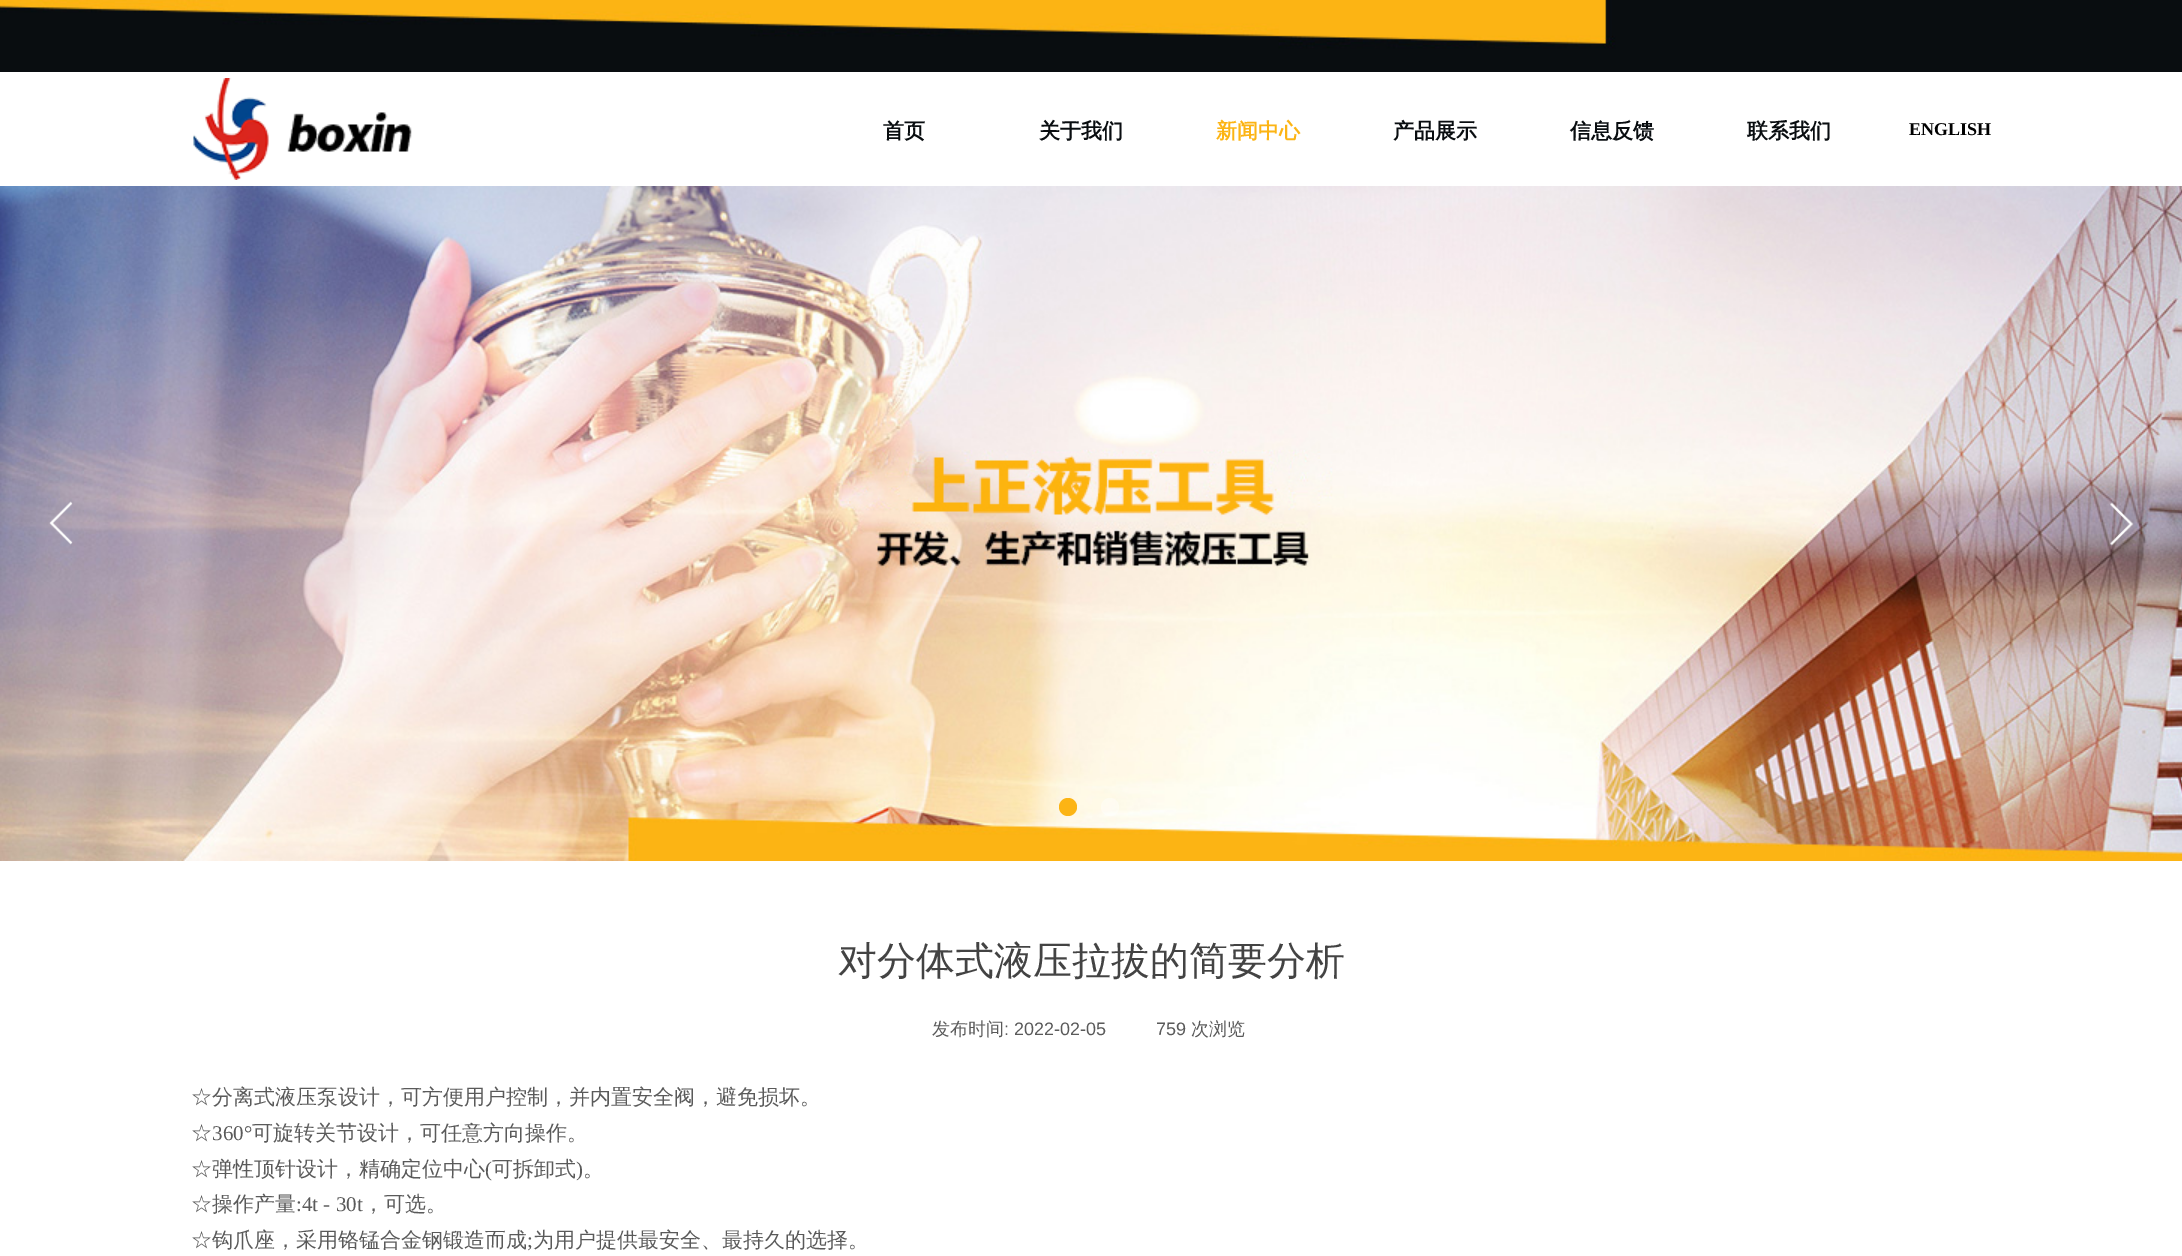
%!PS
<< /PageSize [2182 1256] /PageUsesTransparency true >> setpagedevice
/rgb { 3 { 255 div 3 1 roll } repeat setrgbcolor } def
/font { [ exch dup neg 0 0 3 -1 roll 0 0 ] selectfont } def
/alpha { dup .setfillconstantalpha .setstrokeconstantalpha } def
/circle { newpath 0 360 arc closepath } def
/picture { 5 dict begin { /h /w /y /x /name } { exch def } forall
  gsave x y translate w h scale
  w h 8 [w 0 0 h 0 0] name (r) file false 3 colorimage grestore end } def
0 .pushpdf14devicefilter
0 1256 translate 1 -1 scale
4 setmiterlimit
255 255 255 rgb
0 0 2182 1256 rectfill
(img/1.rgb) 0 0 2182 72 picture
(img/2.rgb) 193 78 219 102 picture
(img/3.rgb) 0 186 2182 675 picture
(img/4.rgb) 49 501 24 44 picture
(img/5.rgb) 2110 502 24 44 picture
252 180 20 rgb
1068 807 9 circle fill
0.4 alpha
255 255 255 rgb
1110 807 9 circle fill
/WenQuanYiZenHei-Bold 21 font
1 alpha
9 13 16 rgb
883 138 moveto (首页) show
1039 138 moveto (关于我们) show
252 180 20 rgb
1216 138 moveto (新闻中心) show
9 13 16 rgb
[
  [(产品展示) 1393 138]
  [(信息反馈) 1570 138]
  [(联系我们) 1747 138]
] { aload pop moveto show } forall
/LiberationSerif-Bold 18 font
0 0 0 rgb
1909 135 moveto (ENGLISH) show
/WenQuanYiZenHei-Medium 39 font
67 67 67 rgb
838 974 moveto (对分体式液压拉拔的简要分析) show
/WenQuanYiZenHei-Medium 18 font
90 90 90 rgb
932 1035 moveto (发布时间) show
/LiberationSans-Regular 18 font
1004 1035 moveto (: 2022-02-05) show
1156 1035 moveto (759) show
/WenQuanYiZenHei-Medium 18 font
1191 1035 moveto (次浏览) show
/WenQuanYiZenHei-Medium 21 font
191 1104 moveto (☆分离式液压泵设计，可方便用户控制，并内置安全阀，避免损坏。) show
191 1140 moveto (☆) show
/LiberationSerif-Regular 21 font
212 1140 moveto (360°) show
/WenQuanYiZenHei-Medium 21 font
252 1140 moveto (可旋转关节设计，可任意方向操作。) show
191 1176 moveto (☆弹性顶针设计，精确定位中心) show
/LiberationSerif-Regular 21 font
485 1176 moveto (\() show
/WenQuanYiZenHei-Medium 21 font
492 1176 moveto (可拆卸式) show
/LiberationSerif-Regular 21 font
576 1176 moveto (\)) show
/WenQuanYiZenHei-Medium 21 font
583 1176 moveto (。) show
191 1211 moveto (☆操作产量) show
/LiberationSerif-Regular 21 font
296 1211 moveto (:4t - 30t) show
/WenQuanYiZenHei-Medium 21 font
363 1211 moveto (，可选。) show
191 1247 moveto (☆钩爪座，采用铬锰合金钢锻造而成) show
/LiberationSerif-Regular 21 font
527 1247 moveto (;) show
/WenQuanYiZenHei-Medium 21 font
533 1247 moveto (为用户提供最安全、最持久的选择。) show
.poppdf14devicefilter showpage
